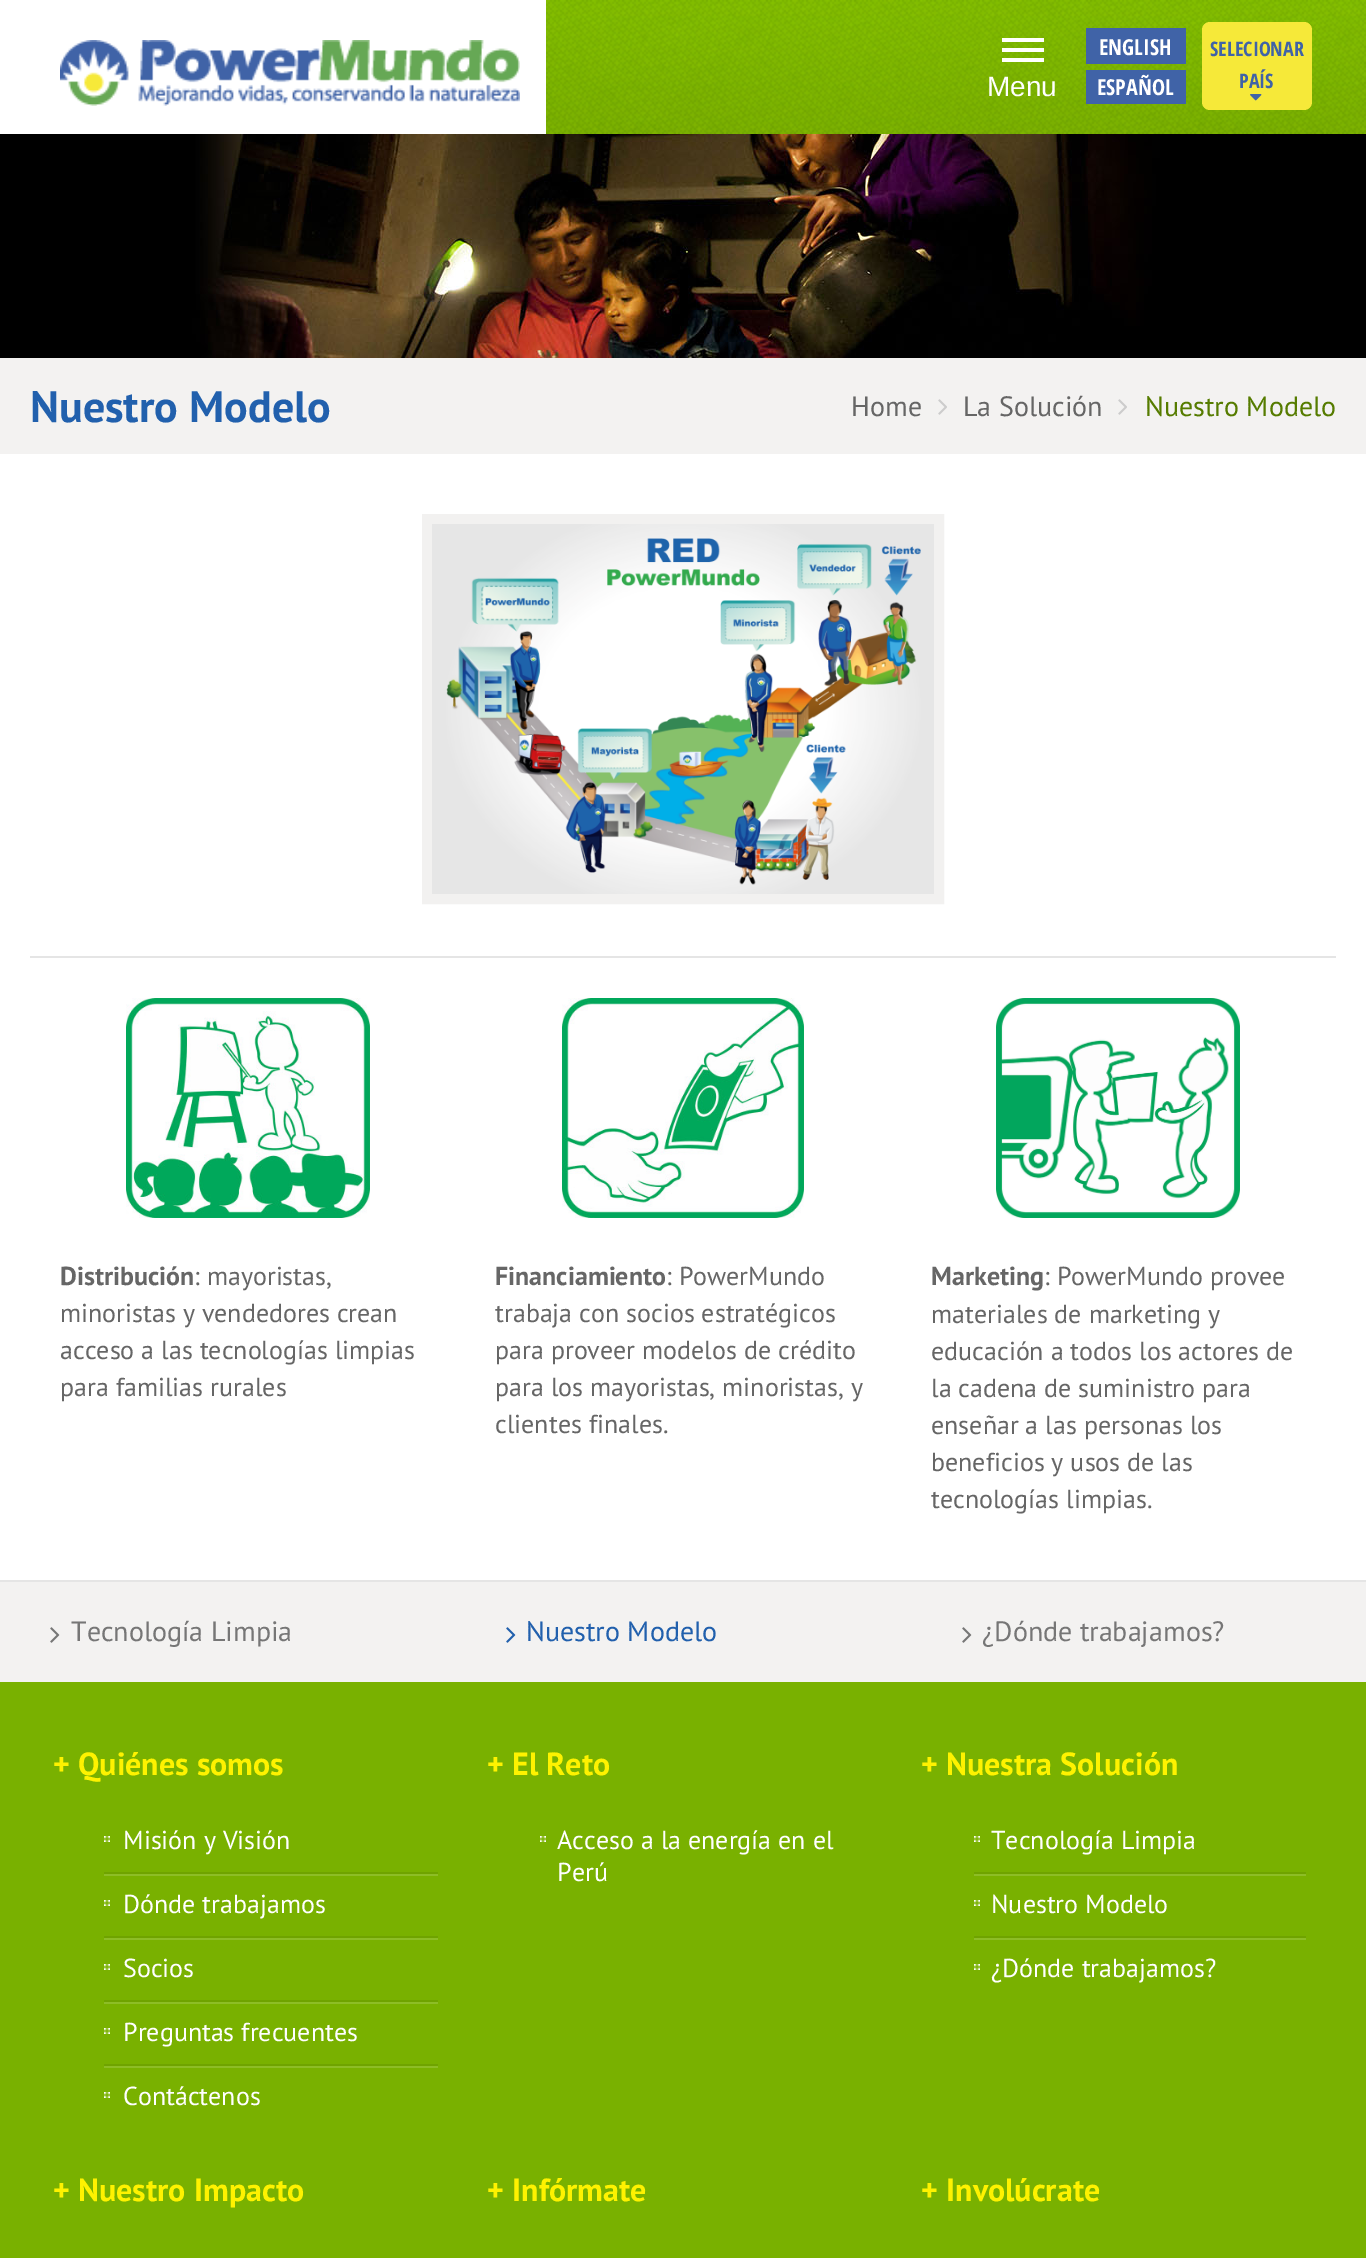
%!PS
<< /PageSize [1366 2258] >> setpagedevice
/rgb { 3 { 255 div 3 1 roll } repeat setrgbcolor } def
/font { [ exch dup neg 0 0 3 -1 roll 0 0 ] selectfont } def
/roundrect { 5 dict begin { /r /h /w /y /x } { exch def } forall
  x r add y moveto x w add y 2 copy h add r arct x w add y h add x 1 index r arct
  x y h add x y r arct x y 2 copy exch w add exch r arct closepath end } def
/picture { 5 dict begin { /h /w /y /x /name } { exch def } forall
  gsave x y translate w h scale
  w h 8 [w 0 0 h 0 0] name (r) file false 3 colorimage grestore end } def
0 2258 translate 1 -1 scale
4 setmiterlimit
255 255 255 rgb
0 0 1366 2258 rectfill
(img/1.rgb) 546 0 820 134 picture
(img/2.rgb) 60 40 460 66 picture
[
  [1002 38 42 4 255 255 255]
  [1002 48 42 4 255 255 255]
  [1002 58 42 4 255 255 255]
  [1086 28 100 36 64 99 167]
  [1086 70 100 34 64 99 167]
] { aload pop rgb rectfill } forall
246 233 57 rgb
1202 22 110 88 8 roundrect fill
(img/3.rgb) 1250 94 12 7 picture
(img/4.rgb) 0 134 1366 224 picture
243 242 241 rgb
0 358 1366 96 rectfill
(img/5.rgb) 938 399 9 16 picture
(img/5.rgb) 1118 399 9 16 picture
242 241 240 rgb
10 setlinewidth
427 519 512 380 rectstroke
(img/6.rgb) 432 524 502 370 picture
229 229 229 rgb
30 956 1306 2 rectfill
(img/7.rgb) 126 998 244 220 picture
(img/8.rgb) 562 998 242 220 picture
(img/9.rgb) 996 998 244 220 picture
243 242 241 rgb
0 1582 1366 100 rectfill
229 229 229 rgb
0 1580 1366 2 rectfill
(img/10.rgb) 50 1627 10 16 picture
(img/11.rgb) 506 1627 10 16 picture
(img/10.rgb) 962 1627 10 16 picture
121 177 0 rgb
0 1682 1366 576 rectfill
111 163 0 rgb
104 1872 334 2 rectfill
(img/12.rgb) 104 1836 6 6 picture
141 189 38 rgb
104 1874 334 2 rectfill
111 163 0 rgb
104 1936 334 2 rectfill
(img/12.rgb) 104 1900 6 6 picture
141 189 38 rgb
104 1938 334 2 rectfill
111 163 0 rgb
104 2000 334 2 rectfill
(img/12.rgb) 104 1964 6 6 picture
141 189 38 rgb
104 2002 334 2 rectfill
111 163 0 rgb
104 2064 334 2 rectfill
(img/12.rgb) 104 2028 6 6 picture
141 189 38 rgb
104 2066 334 2 rectfill
(img/12.rgb) 104 2092 6 6 picture
(img/12.rgb) 540 1836 6 6 picture
111 163 0 rgb
974 1872 332 2 rectfill
(img/12.rgb) 974 1836 6 6 picture
141 189 38 rgb
974 1874 332 2 rectfill
111 163 0 rgb
974 1936 332 2 rectfill
(img/12.rgb) 974 1900 6 6 picture
141 189 38 rgb
974 1938 332 2 rectfill
(img/12.rgb) 974 1964 6 6 picture
/LiberationSans-Regular 28 font
255 255 255 rgb
987 96 moveto (Menu) show
/OpenSansCondensed-Bold 22 font
1099 55 moveto (ENGLISH) show
1097 95 moveto (ESPAÑOL) show
/OpenSansCondensed-Bold 20 font
64 99 167 rgb
1210 56 moveto (SELECIONAR) show
1239 88 moveto (PAÍS) show
/PTSans-Bold 44 font
33 96 173 rgb
30 422 moveto (Nuestro Modelo) show
/PTSans-Regular 28 font
102 102 102 rgb
851 416 moveto (Home) show
963 416 moveto (La Solución) show
86 124 0 rgb
1145 416 moveto (Nuestro Modelo) show
/PTSans-Bold 26 font
102 102 102 rgb
60 1285 moveto (Distribución) show
/PTSans-Regular 26 font
[
  [(: mayoristas,) 194 1285]
  [(minoristas y vendedores crean) 60 1322]
  [(acceso a las tecnologías limpias) 60 1359]
  [(para familias rurales) 60 1396]
] { aload pop moveto show } forall
/PTSans-Bold 26 font
495 1285 moveto (Financiamiento) show
/PTSans-Regular 26 font
[
  [(: PowerMundo) 666 1285]
  [(trabaja con socios estratégicos) 495 1322]
  [(para proveer modelos de crédito) 495 1359]
  [(para los mayoristas, minoristas, y) 495 1396]
  [(clientes finales.) 495 1433]
] { aload pop moveto show } forall
/PTSans-Bold 26 font
931 1285 moveto (Marketing) show
/PTSans-Regular 26 font
[
  [(: PowerMundo provee) 1044 1285]
  [(materiales de marketing y) 931 1323]
  [(educación a todos los actores de) 931 1360]
  [(la cadena de suministro para) 931 1397]
  [(enseñar a las personas los) 931 1434]
  [(beneficios y usos de las) 931 1471]
  [(tecnologías limpias.) 931 1508]
] { aload pop moveto show } forall
/PTSans-Regular 28 font
118 118 118 rgb
71 1641 moveto (Tecnología Limpia) show
33 96 173 rgb
526 1641 moveto (Nuestro Modelo) show
118 118 118 rgb
982 1641 moveto (¿Dónde trabajamos?) show
/PTSans-Bold 32 font
254 242 0 rgb
53 1775 moveto (+ Quiénes somos) show
/PTSans-Regular 26 font
255 255 255 rgb
[
  [(Misión y Visión) 123 1849]
  [(Dónde trabajamos) 123 1913]
  [(Socios) 123 1977]
  [(Preguntas frecuentes) 123 2041]
  [(Contáctenos) 123 2105]
] { aload pop moveto show } forall
/PTSans-Bold 32 font
254 242 0 rgb
487 1775 moveto (+ El Reto) show
/PTSans-Regular 26 font
255 255 255 rgb
557 1849 moveto (Acceso a la energía en el) show
557 1881 moveto (Perú) show
/PTSans-Bold 32 font
254 242 0 rgb
921 1775 moveto (+ Nuestra Solución) show
/PTSans-Regular 26 font
255 255 255 rgb
[
  [(Tecnología Limpia) 991 1849]
  [(Nuestro Modelo) 991 1913]
  [(¿Dónde trabajamos?) 991 1977]
] { aload pop moveto show } forall
/PTSans-Bold 32 font
254 242 0 rgb
[
  [(+ Nuestro Impacto) 53 2201]
  [(+ Infórmate) 487 2201]
  [(+ Involúcrate) 921 2201]
] { aload pop moveto show } forall
showpage
